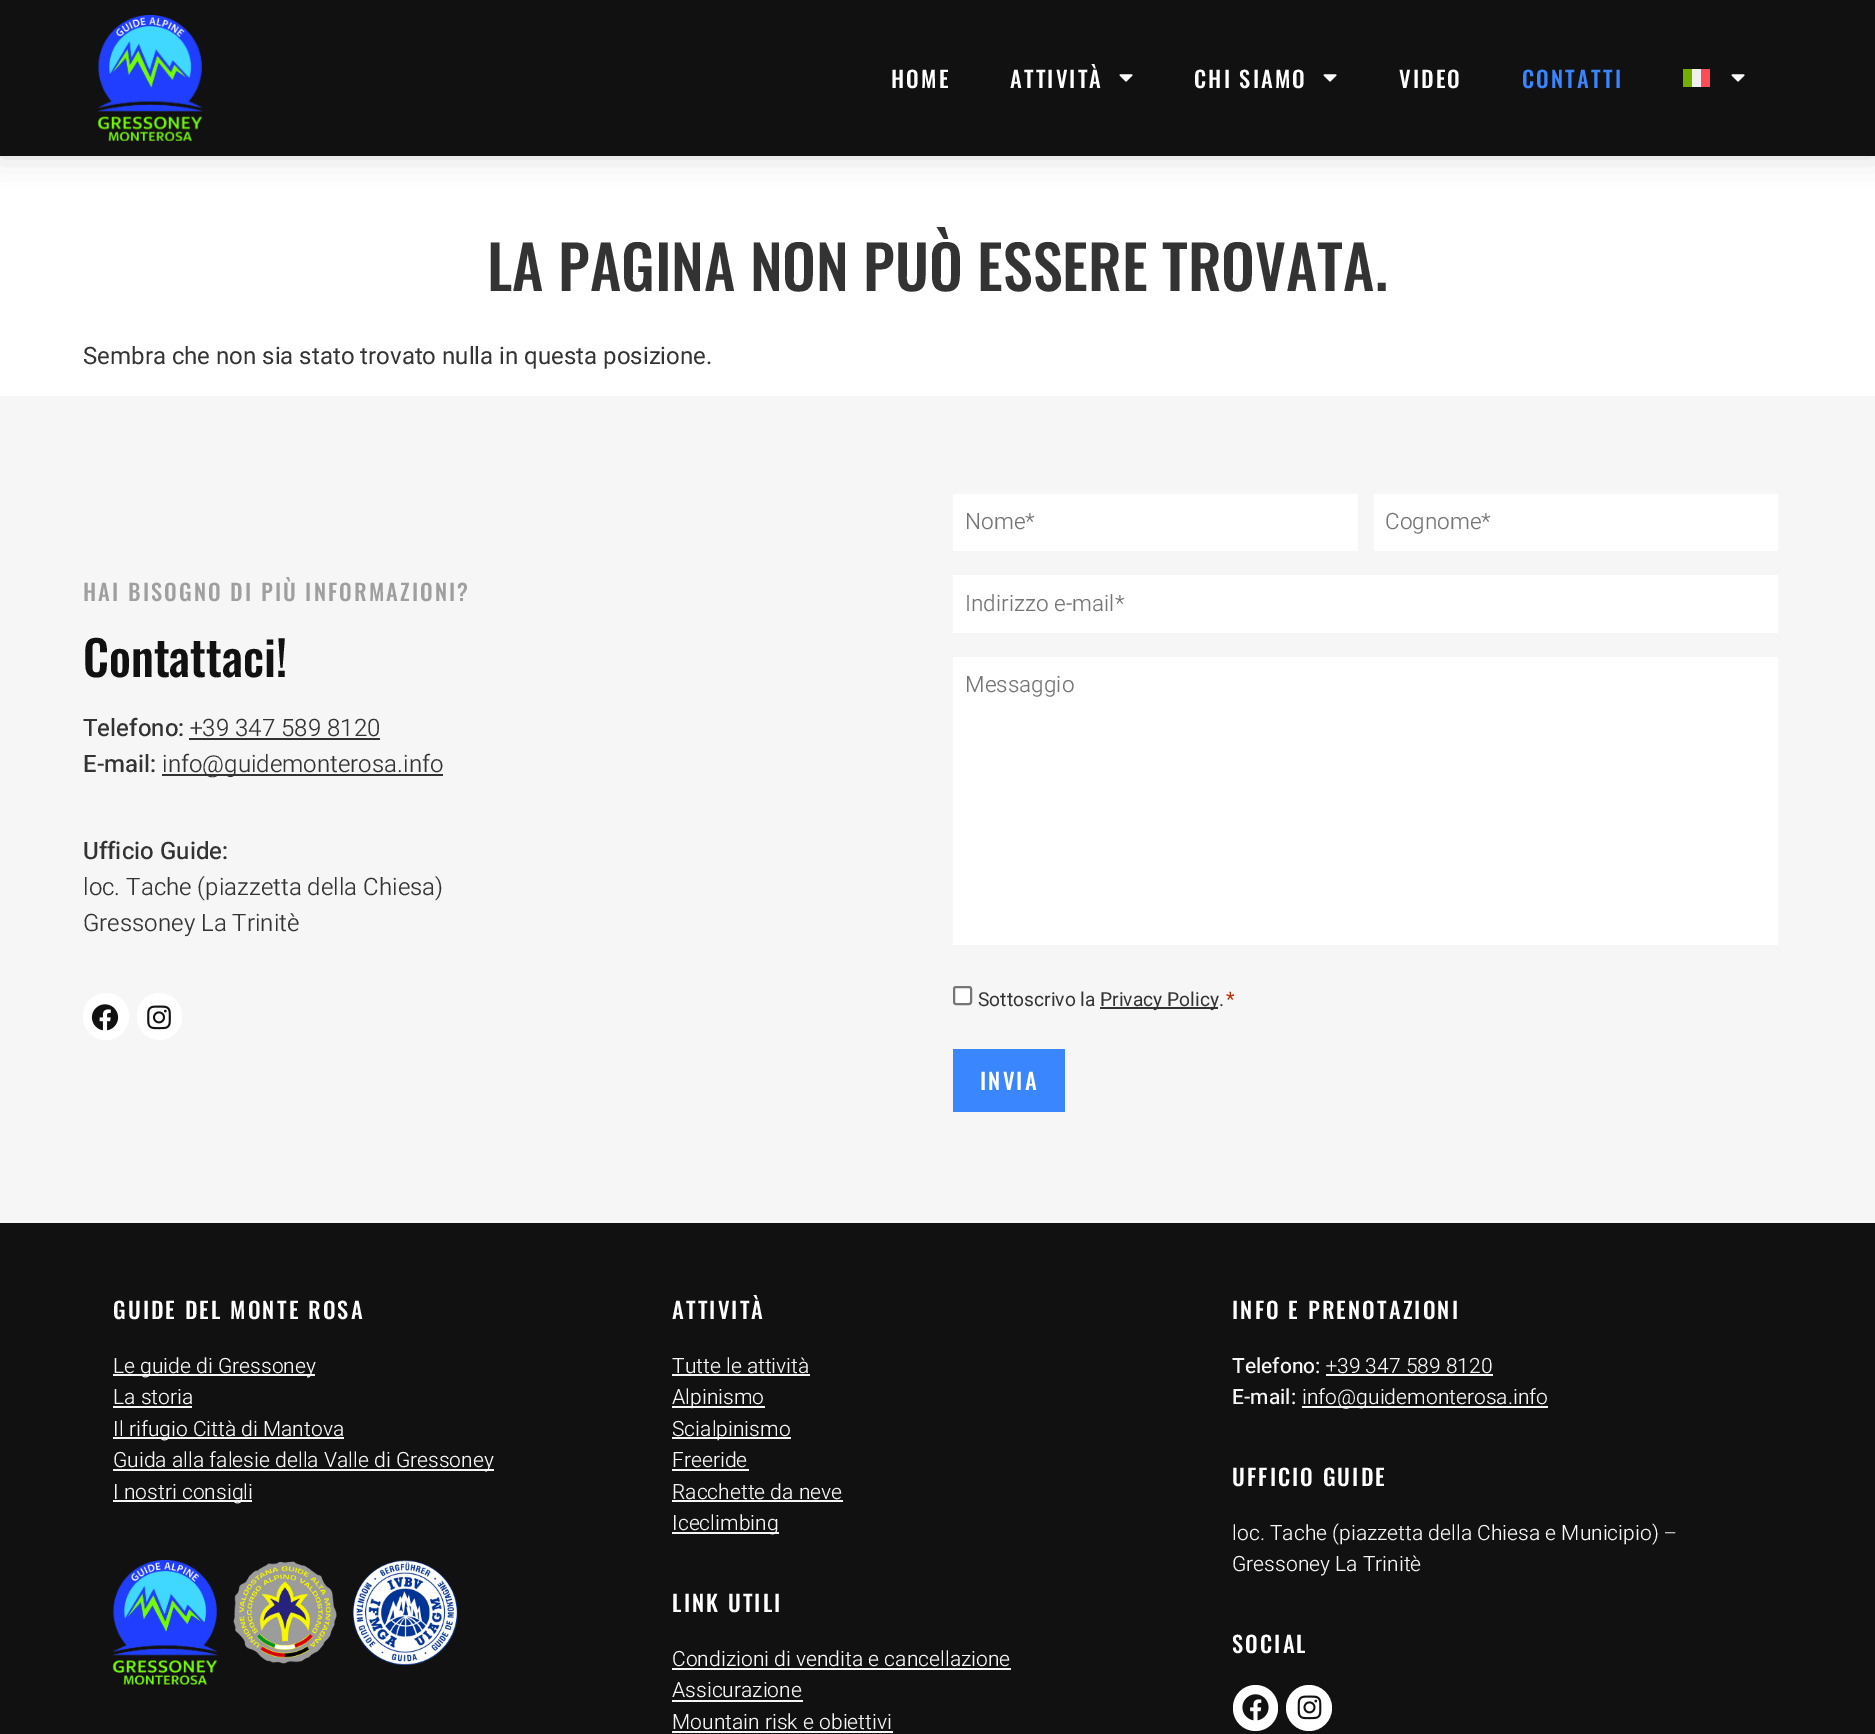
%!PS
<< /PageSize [1875 1734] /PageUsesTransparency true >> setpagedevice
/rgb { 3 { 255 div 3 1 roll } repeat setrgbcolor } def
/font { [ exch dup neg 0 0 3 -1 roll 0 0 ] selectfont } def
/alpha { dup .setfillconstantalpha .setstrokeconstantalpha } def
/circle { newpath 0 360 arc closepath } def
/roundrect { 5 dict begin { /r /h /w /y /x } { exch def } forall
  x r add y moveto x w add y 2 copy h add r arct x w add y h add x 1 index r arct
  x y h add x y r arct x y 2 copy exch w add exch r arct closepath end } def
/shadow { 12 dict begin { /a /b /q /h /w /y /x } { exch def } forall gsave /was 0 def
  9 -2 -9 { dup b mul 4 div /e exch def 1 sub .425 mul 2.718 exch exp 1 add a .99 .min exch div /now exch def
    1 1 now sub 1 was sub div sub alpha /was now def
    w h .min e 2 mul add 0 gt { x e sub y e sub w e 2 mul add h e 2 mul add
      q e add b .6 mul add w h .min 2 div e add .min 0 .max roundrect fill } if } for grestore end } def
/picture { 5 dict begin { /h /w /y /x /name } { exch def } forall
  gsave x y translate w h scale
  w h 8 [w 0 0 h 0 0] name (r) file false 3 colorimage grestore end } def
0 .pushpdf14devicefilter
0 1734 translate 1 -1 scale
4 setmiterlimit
255 255 255 rgb
0 0 1875 1734 rectfill
0 0 0 rgb
0 0 1875 156 0 15 0.16 shadow
17 17 18 rgb
0 0 1875 156 rectfill
(img/1.rgb) 97 15 106 126 picture
(img/2.rgb) 1119 74 14 8 picture
(img/2.rgb) 1323 74 14 8 picture
[
  [1692 69 9 18 240 240 240]
  [1701 69 9 18 255 75 85]
  [1683 69 9 18 115 175 0]
] { aload pop rgb rectfill } forall
(img/2.rgb) 1731 74 14 8 picture
[
  [0 396 1875 827 246 246 246]
  [189 738 191 2 51 51 51]
  [162 774 281 2 51 51 51]
] { aload pop rgb rectfill } forall
255 255 255 rgb
83 993 46 47 23 roundrect fill
(img/3.rgb) 91 1004 28 27 picture
137 993 45 47 22.5 roundrect fill
(img/4.rgb) 147 1005 24 25 picture
[
  [953 494 405 57 255 255 255]
  [1374 494 404 57 255 255 255]
  [953 575 825 58 255 255 255]
  [953 657 825 288 255 255 255]
] { aload pop rgb rectfill } forall
954 987 17 17 2 roundrect gsave fill grestore
118 118 118 rgb
2 setlinewidth
stroke
[
  [1100 1007 118 2 51 51 51]
  [953 1049 112 63 58 134 255]
  [0 1223 1875 511 17 17 18]
  [113 1374 202 2 246 246 246]
  [113 1406 79 2 246 246 246]
  [113 1437 231 2 246 246 246]
  [113 1469 381 2 246 246 246]
  [113 1500 139 2 246 246 246]
] { aload pop rgb rectfill } forall
(img/5.rgb) 112 1560 106 125 picture
(img/6.rgb) 233 1561 104 103 picture
(img/7.rgb) 352 1560 106 105 picture
[
  [672 1374 138 2 246 246 246]
  [672 1406 93 2 246 246 246]
  [672 1437 119 2 246 246 246]
  [672 1469 77 2 246 246 246]
  [672 1500 171 2 246 246 246]
  [672 1532 107 2 246 246 246]
  [672 1668 339 2 246 246 246]
  [672 1700 131 2 246 246 246]
  [672 1731 221 2 246 246 246]
  [1326 1374 167 2 246 246 246]
  [1302 1406 246 2 246 246 246]
] { aload pop rgb rectfill } forall
255 255 255 rgb
1233 1685 45 46 22.5 roundrect fill
(img/8.rgb) 1242 1694 27 27 picture
1309 1708 23 circle fill
(img/9.rgb) 1297 1695 25 25 picture
/Oswald-Medium 22.5 font
891 88 moveto 2.1 0 (HOME) ashow
1010 88 moveto 2.1 0 (ATTIVITÀ) ashow
1194 88 moveto 2.1 0 (CHI SIAMO) ashow
1399 88 moveto 2.1 0 (VIDEO) ashow
58 134 255 rgb
1522 88 moveto 2.1 0 (CONTATTI) ashow
/Oswald-Medium 60 font
51 51 51 rgb
487 291 moveto (LA PAGINA NON PUÒ ESSERE TROVATA.) show
/Roboto-Regular 24 font
83 364 moveto (Sembra che non sia stato trovato nulla in questa posizione.) show
/Oswald-Medium 22.5 font
159 159 159 rgb
83 601 moveto 2.1 0 (HAI BISOGNO DI PIÙ INFORMAZIONI?) ashow
/Oswald-Medium 48 font
17 17 18 rgb
83 677 moveto (Contattaci!) show
/Heebo-Medium 24 font
51 51 51 rgb
83 736 moveto (Telefono:) show
/Heebo-Light 24 font
190 736 moveto (+39 347 589 8120) show
/Heebo-Medium 24 font
83 772 moveto (E-mail:) show
/Heebo-Light 24 font
162 772 moveto (info@guidemonterosa.info) show
/Heebo-Medium 24 font
83 859 moveto (Ufficio Guide:) show
/Heebo-Light 24 font
83 895 moveto (loc. Tache \(piazzetta della Chiesa\)) show
83 931 moveto (Gressoney La Trinitè) show
/Heebo-Light 22.5 font
117 117 117 rgb
[
  [(Nome*) 965 529]
  [(Cognome*) 1385 529]
  [(Indirizzo e-mail*) 965 611]
  [(Messaggio) 965 692]
] { aload pop moveto show } forall
/Roboto-Regular 19.25 font
51 51 51 rgb
978 1006 moveto (Sottoscrivo la) show
1100 1006 moveto (Privacy Policy.) show
/Roboto-Regular 20 font
192 43 10 rgb
1226 1006 moveto (*) show
/Oswald-Medium 22.5 font
255 255 255 rgb
980 1090 moveto 2.1 0 (INVIA) ashow
113 1319 moveto 2.1 0 (GUIDE DEL MONTE ROSA) ashow
/Heebo-Light 21 font
246 246 246 rgb
[
  [(Le guide di Gressoney) 113 1373]
  [(La storia) 113 1404]
  [(Il rifugio Città di Mantova) 113 1436]
  [(Guida alla falesie della Valle di Gressoney) 113 1467]
  [(I nostri consigli) 113 1499]
] { aload pop moveto show } forall
/Oswald-Medium 22.5 font
255 255 255 rgb
672 1319 moveto 2.1 0 (ATTIVITÀ) ashow
/Heebo-Light 21 font
246 246 246 rgb
[
  [(Tutte le attività) 672 1373]
  [(Alpinismo) 672 1404]
  [(Scialpinismo) 672 1436]
  [(Freeride) 672 1467]
  [(Racchette da neve) 672 1499]
  [(Iceclimbing) 672 1530]
] { aload pop moveto show } forall
/Oswald-Medium 22.5 font
255 255 255 rgb
672 1612 moveto 2.1 0 (LINK UTILI) ashow
/Heebo-Light 21 font
246 246 246 rgb
[
  [(Condizioni di vendita e cancellazione) 672 1666]
  [(Assicurazione) 672 1697]
  [(Mountain risk e obiettivi) 672 1729]
] { aload pop moveto show } forall
/Oswald-Medium 22.5 font
255 255 255 rgb
1232 1319 moveto 2.1 0 (INFO E PRENOTAZIONI) ashow
/Heebo-Medium 21 font
246 246 246 rgb
1232 1373 moveto (Telefono:) show
/Heebo-Light 21 font
1326 1373 moveto (+39 347 589 8120) show
/Heebo-Medium 21 font
1232 1404 moveto (E-mail:) show
/Heebo-Light 21 font
1302 1404 moveto (info@guidemonterosa.info) show
/Oswald-Medium 22.5 font
255 255 255 rgb
1232 1486 moveto 2.1 0 (UFFICIO GUIDE) ashow
/Heebo-Light 21 font
246 246 246 rgb
1232 1540 moveto (loc. Tache \(piazzetta della Chiesa e Municipio\) –) show
1232 1571 moveto (Gressoney La Trinitè) show
/Oswald-Medium 22.5 font
255 255 255 rgb
1232 1653 moveto 2.1 0 (SOCIAL) ashow
.poppdf14devicefilter showpage
